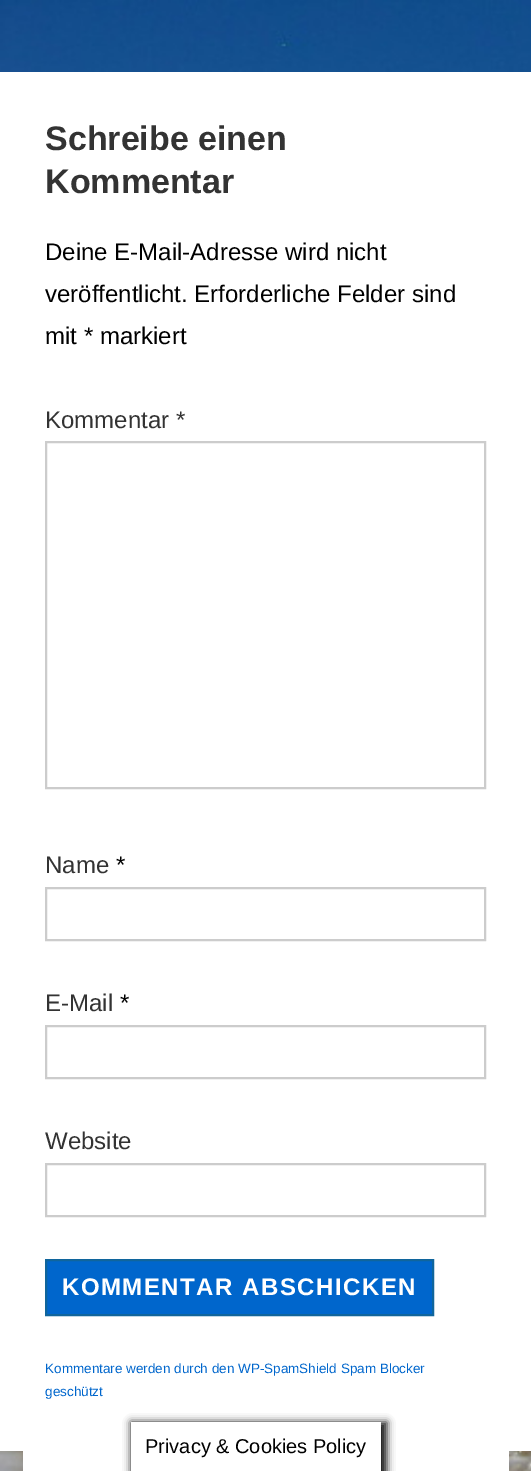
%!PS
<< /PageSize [531 1471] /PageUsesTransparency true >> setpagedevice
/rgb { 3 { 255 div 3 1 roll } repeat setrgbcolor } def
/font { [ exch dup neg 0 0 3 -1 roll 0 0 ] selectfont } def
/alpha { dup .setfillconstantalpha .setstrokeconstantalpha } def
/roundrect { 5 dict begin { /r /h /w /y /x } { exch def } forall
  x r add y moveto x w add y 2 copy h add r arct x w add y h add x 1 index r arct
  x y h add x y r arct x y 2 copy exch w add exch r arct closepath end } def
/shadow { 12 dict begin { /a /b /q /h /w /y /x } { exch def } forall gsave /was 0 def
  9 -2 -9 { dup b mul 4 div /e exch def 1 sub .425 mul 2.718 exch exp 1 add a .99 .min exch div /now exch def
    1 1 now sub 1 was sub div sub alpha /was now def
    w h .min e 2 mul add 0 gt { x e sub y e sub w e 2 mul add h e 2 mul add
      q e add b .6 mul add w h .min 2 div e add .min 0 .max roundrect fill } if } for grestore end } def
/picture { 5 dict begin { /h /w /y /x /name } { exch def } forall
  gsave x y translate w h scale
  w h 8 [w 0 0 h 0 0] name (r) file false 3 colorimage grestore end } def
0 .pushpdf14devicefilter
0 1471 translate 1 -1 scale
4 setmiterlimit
255 255 255 rgb
0 0 531 1471 rectfill
(img/1.rgb) 0 0 531 1471 picture
0 72 531 1379 rectfill
204 204 204 rgb
2 setlinewidth
46 442 439 346 rectstroke
46 888 439 52 rectstroke
46 1026 439 52 rectstroke
46 1164 439 52 rectstroke
0 102 204 rgb
46 1260 moveto 433 1260 lineto 433 1315 lineto 46 1315 lineto closepath gsave fill grestore
16 101 156 rgb
stroke
255 255 255 rgb
23 1451 486 20 rectfill
gsave
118 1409 moveto 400 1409 lineto 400 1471 lineto 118 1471 lineto closepath 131 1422 moveto 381 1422 lineto 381 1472 lineto 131 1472 lineto closepath eoclip newpath
22 22 22 rgb
131 1422 256 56 0 4 1 shadow
grestore
/LiberationSans-Bold 34 font
51 51 51 rgb
45 150 moveto (Schreibe einen) show
45 193 moveto (Kommentar) show
/LiberationSans-Regular 24 font
0 0 0 rgb
[
  [(Deine E-Mail-Adresse wird nicht) 45 260]
  [(veröffentlicht. Erforderliche Felder sind) 45 302]
  [(mit * markiert) 45 344]
] { aload pop moveto show } forall
51 51 51 rgb
45 428 moveto (Kommentar *) show
45 873 moveto (Name) show
0 0 0 rgb
116 873 moveto (*) show
51 51 51 rgb
45 1011 moveto (E-Mail) show
0 0 0 rgb
120 1011 moveto (*) show
51 51 51 rgb
45 1149 moveto (Website) show
/LiberationSans-Bold 24 font
255 255 255 rgb
62 1295 moveto 1.5 0 (KOMMENTAR ABSCHICKEN) ashow
/LiberationSans-Regular 13.5 font
0 102 204 rgb
45 1373 moveto (Kommentare werden durch den WP-SpamShield Spam Blocker) show
45 1396 moveto (geschützt) show
/LiberationSans-Regular 20 font
0 0 0 rgb
145 1453 moveto (Privacy & Cookies Policy) show
.poppdf14devicefilter showpage
